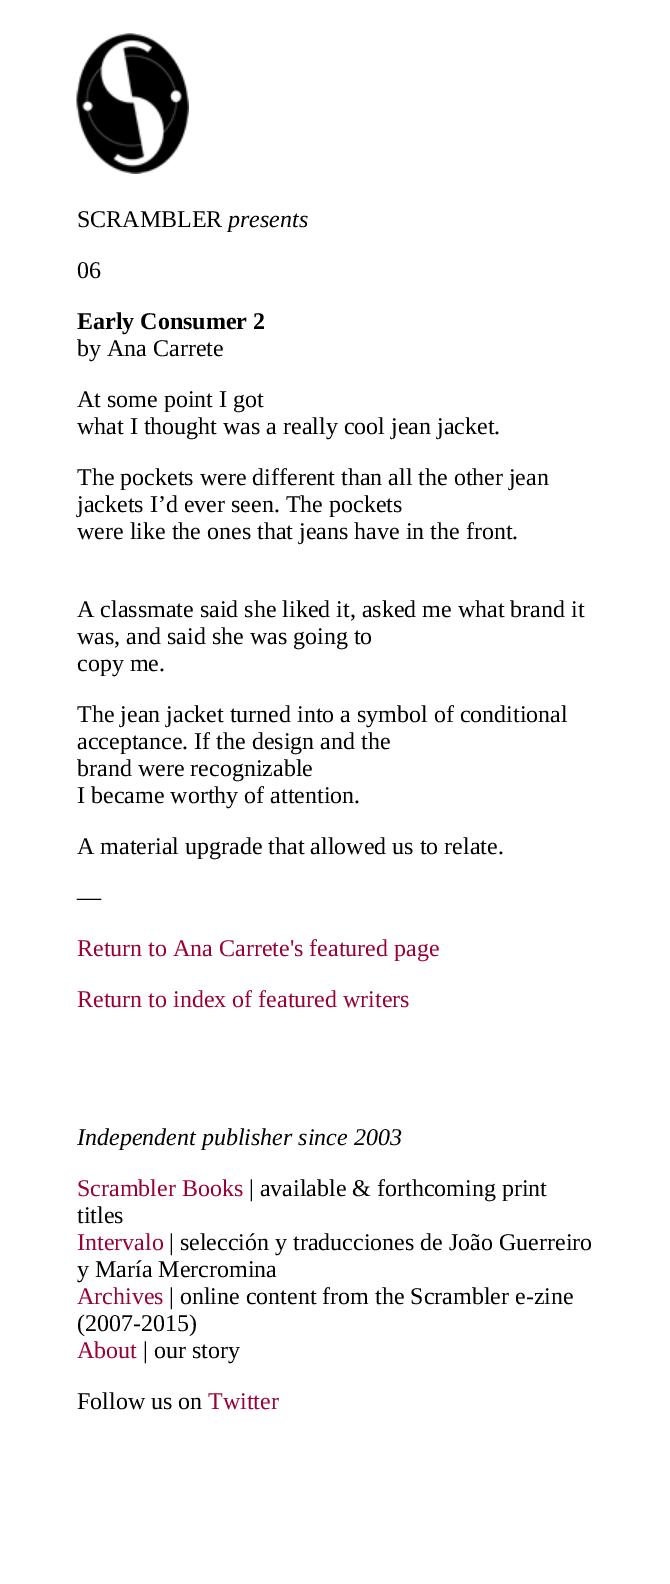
%!PS
<< /PageSize [670 1584] >> setpagedevice
/rgb { 3 { 255 div 3 1 roll } repeat setrgbcolor } def
/font { [ exch dup neg 0 0 3 -1 roll 0 0 ] selectfont } def
/picture { 5 dict begin { /h /w /y /x /name } { exch def } forall
  gsave x y translate w h scale
  w h 8 [w 0 0 h 0 0] name (r) file false 3 colorimage grestore end } def
0 1584 translate 1 -1 scale
4 setmiterlimit
255 255 255 rgb
0 0 670 1584 rectfill
(img/1.rgb) 76 33 113 141 picture
/LiberationSerif-Regular 24 font
0 0 0 rgb
77 227 moveto (SCRAMBLER) show
/LiberationSerif-Italic 24 font
228 227 moveto (presents) show
/LiberationSerif-Regular 24 font
77 278 moveto (06) show
/LiberationSerif-Bold 24 font
77 329 moveto (Early Consumer 2) show
/LiberationSerif-Regular 24 font
[
  [(by Ana Carrete) 77 356]
  [(At some point I got) 77 407]
  [(what I thought was a really cool jean jacket.) 77 434]
  [(The pockets were different than all the other jean) 77 485]
  [(jackets I’d ever seen. The pockets) 77 512]
  [(were like the ones that jeans have in the front.) 77 539]
  [(A classmate said she liked it, asked me what brand it) 77 617]
  [(was, and said she was going to) 77 644]
  [(copy me.) 77 671]
  [(The jean jacket turned into a symbol of conditional) 77 722]
  [(acceptance. If the design and the) 77 749]
  [(brand were recognizable) 77 776]
  [(I became worthy of attention.) 77 803]
  [(A material upgrade that allowed us to relate.) 77 854]
  [(—) 77 905]
] { aload pop moveto show } forall
153 0 51 rgb
77 956 moveto (Return to Ana Carrete's featured page) show
77 1007 moveto (Return to index of featured writers) show
/LiberationSerif-Italic 24 font
0 0 0 rgb
77 1145 moveto (Independent publisher since 2003) show
/LiberationSerif-Regular 24 font
153 0 51 rgb
77 1196 moveto (Scrambler Books) show
0 0 0 rgb
249 1196 moveto (| available & forthcoming print) show
77 1223 moveto (titles) show
153 0 51 rgb
77 1250 moveto (Intervalo) show
0 0 0 rgb
169 1250 moveto (| selección y traducciones de João Guerreiro) show
77 1277 moveto (y María Mercromina) show
153 0 51 rgb
77 1304 moveto (Archives) show
0 0 0 rgb
169 1304 moveto (| online content from the Scrambler e-zine) show
77 1331 moveto (\(2007-2015\)) show
153 0 51 rgb
77 1358 moveto (About) show
0 0 0 rgb
143 1358 moveto (| our story) show
77 1409 moveto (Follow us on) show
153 0 51 rgb
208 1409 moveto (Twitter) show
showpage
